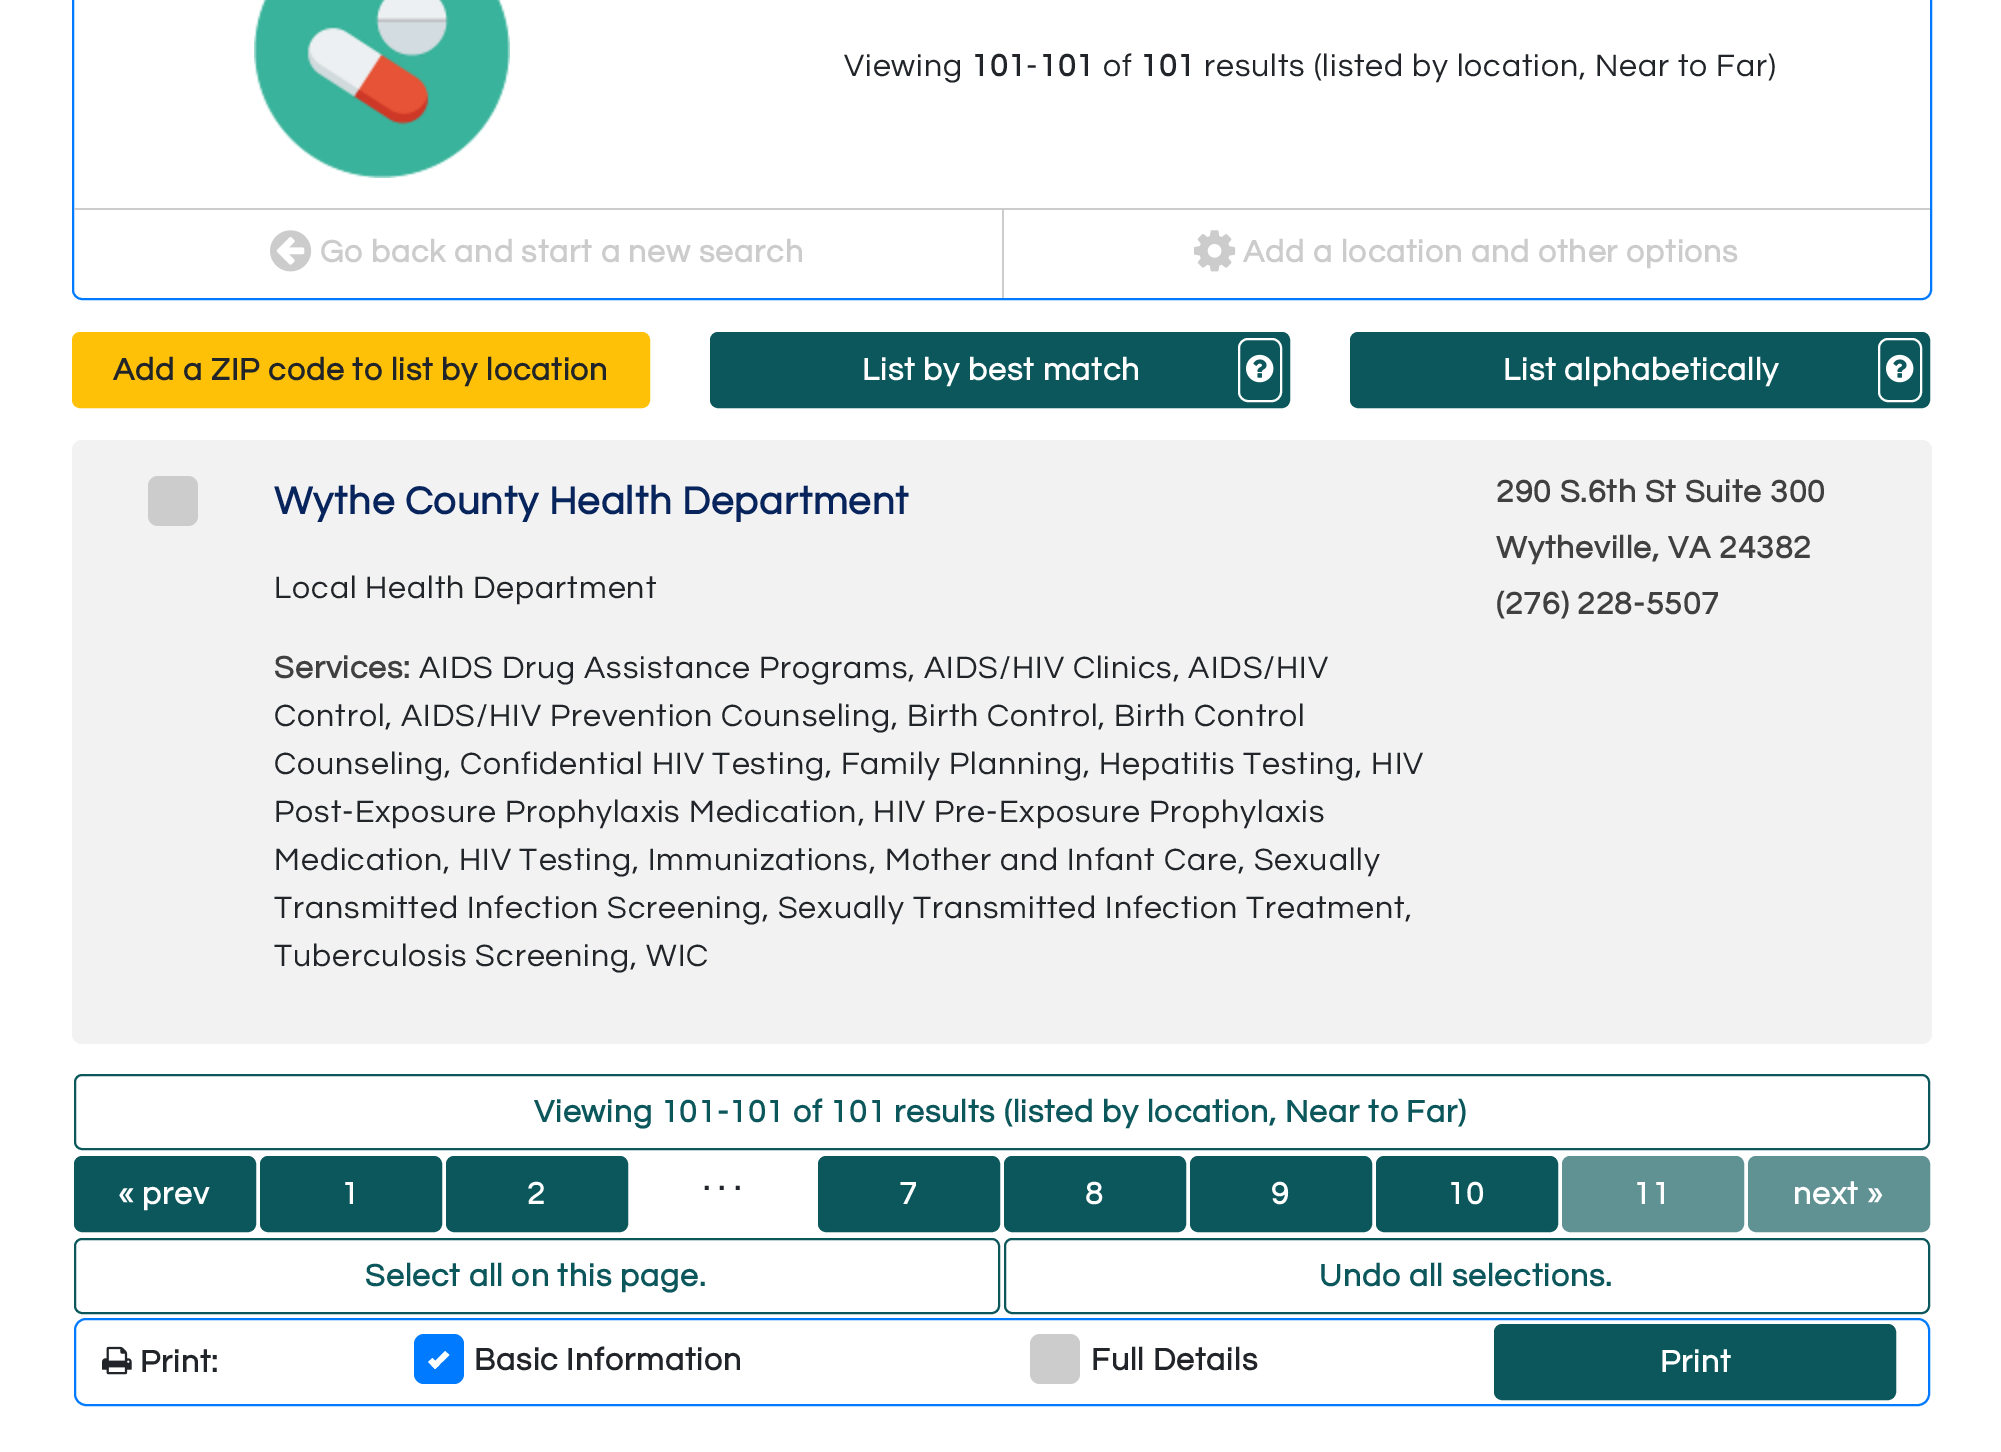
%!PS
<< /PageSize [2001 1452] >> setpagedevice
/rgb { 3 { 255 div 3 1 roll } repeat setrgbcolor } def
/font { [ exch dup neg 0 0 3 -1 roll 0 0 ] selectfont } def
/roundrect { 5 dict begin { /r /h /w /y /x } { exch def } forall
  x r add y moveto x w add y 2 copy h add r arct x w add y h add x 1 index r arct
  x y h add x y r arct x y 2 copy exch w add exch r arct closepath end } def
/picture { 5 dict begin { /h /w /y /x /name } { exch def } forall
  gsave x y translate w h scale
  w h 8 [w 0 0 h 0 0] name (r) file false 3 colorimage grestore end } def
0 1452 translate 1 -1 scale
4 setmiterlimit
255 255 255 rgb
0 0 2001 1452 rectfill
0 123 255 rgb
2 setlinewidth
73 -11 1858 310 9 roundrect stroke
(img/1.rgb) 254 0 256 178 picture
204 204 204 rgb
74 208 1856 2 rectfill
(img/2.rgb) 270 230 42 42 picture
1002 210 2 88 rectfill
(img/3.rgb) 1194 230 42 42 picture
255 193 7 rgb
73 333 576 74 7 roundrect gsave fill grestore
stroke
11 87 91 rgb
711 333 578 74 7 roundrect gsave fill grestore
stroke
255 255 255 rgb
1239 339 42 62 9 roundrect stroke
(img/4.rgb) 1246 354 28 29 picture
11 87 91 rgb
1351 333 578 74 7 roundrect gsave fill grestore
stroke
255 255 255 rgb
1879 339 42 62 9 roundrect stroke
(img/4.rgb) 1886 354 28 29 picture
242 242 242 rgb
72 440 1860 604 10 roundrect fill
204 204 204 rgb
148 476 50 50 10 roundrect fill
11 87 91 rgb
75 1075 1854 74 7 roundrect stroke
75 1157 180 74 7 roundrect gsave fill grestore
stroke
261 1157 180 74 7 roundrect gsave fill grestore
stroke
447 1157 180 74 7 roundrect gsave fill grestore
stroke
819 1157 180 74 7 roundrect gsave fill grestore
stroke
1005 1157 180 74 7 roundrect gsave fill grestore
stroke
1191 1157 180 74 7 roundrect gsave fill grestore
stroke
1377 1157 180 74 7 roundrect gsave fill grestore
stroke
96 146 148 rgb
1563 1157 180 74 7 roundrect gsave fill grestore
stroke
1749 1157 180 74 7 roundrect gsave fill grestore
stroke
11 87 91 rgb
75 1239 924 74 7 roundrect stroke
1005 1239 924 74 7 roundrect stroke
0 123 255 rgb
75 1319 1854 86 11 roundrect stroke
(img/5.rgb) 102 1346 30 29 picture
414 1334 50 50 10 roundrect fill
255 255 255 rgb
445 1351 moveto 449.5 1355 lineto 435 1369 lineto 431 1365 lineto closepath fill
432.5 1358 moveto 439.5 1365 lineto 435 1369 lineto 428 1362 lineto closepath fill
204 204 204 rgb
1030 1334 50 50 10 roundrect fill
11 87 91 rgb
1495 1325 400 74 7 roundrect gsave fill grestore
stroke
/Questrial-Regular 32 font
33 37 41 rgb
844 76 moveto 1 0 (Viewing) ashow
/Questrial-Bold 32 font
971 76 moveto 1 0 (101) ashow
/Questrial-Regular 32 font
1026 76 moveto 1 0 (-) ashow
/Questrial-Bold 32 font
1039 76 moveto 1 0 (101) ashow
/Questrial-Regular 32 font
1103 76 moveto 1 0 (of) ashow
/Questrial-Bold 32 font
1140 76 moveto 1 0 (101) ashow
/Questrial-Regular 32 font
1204 76 moveto 1 0 (results \(listed by location, Near to Far\)) ashow
/Questrial-Bold 32 font
204 204 204 rgb
320 262 moveto 1 0 (Go back and start a new search) ashow
1243 262 moveto 1 0 (Add a location and other options) ashow
33 37 41 rgb
113 380 moveto 1 0 (Add a ZIP code to list by location) ashow
255 255 255 rgb
862 380 moveto 1 0 (List by best match) ashow
1503 380 moveto 1 0 (List alphabetically) ashow
/Questrial-Bold 40 font
7 36 92 rgb
274 514 moveto 1 0 (Wythe County Health Department) ashow
/Questrial-Regular 32 font
33 37 41 rgb
274 598 moveto 1 0 (Local Health Department) ashow
/Questrial-Bold 32 font
64 64 64 rgb
274 678 moveto 1 0 (Services:) ashow
/Questrial-Regular 32 font
33 37 41 rgb
419 678 moveto 1 0 (AIDS Drug Assistance Programs, AIDS/HIV Clinics, AIDS/HIV) ashow
274 726 moveto 1 0 (Control, AIDS/HIV Prevention Counseling, Birth Control, Birth Control) ashow
274 774 moveto 1 0 (Counseling, Confidential HIV Testing, Family Planning, Hepatitis Testing, HIV) ashow
274 822 moveto 1 0 (Post-Exposure Prophylaxis Medication, HIV Pre-Exposure Prophylaxis) ashow
274 870 moveto 1 0 (Medication, HIV Testing, Immunizations, Mother and Infant Care, Sexually) ashow
274 918 moveto 1 0 (Transmitted Infection Screening, Sexually Transmitted Infection Treatment,) ashow
274 966 moveto 1 0 (Tuberculosis Screening, WIC) ashow
/Questrial-Bold 32 font
64 64 64 rgb
1496 502 moveto 1 0 (290 S.6th St Suite 300) ashow
1496 558 moveto 1 0 (Wytheville, VA 24382) ashow
1496 614 moveto 1 0 (\(276\) 228-5507) ashow
11 87 91 rgb
534 1122 moveto 1 0 (Viewing 101-101 of 101 results \(listed by location, Near to Far\)) ashow
255 255 255 rgb
118 1204 moveto 1 0 (« prev) ashow
341 1204 moveto 1 0 (1) ashow
527 1204 moveto 1 0 (2) ashow
33 37 41 rgb
703 1190 moveto 1 0 (. . .) ashow
255 255 255 rgb
899 1204 moveto 1 0 (7) ashow
1085 1204 moveto 1 0 (8) ashow
1271 1204 moveto 1 0 (9) ashow
1447 1204 moveto 1 0 (10) ashow
1633 1204 moveto 1 0 (11) ashow
1793 1204 moveto 1 0 (next ») ashow
11 87 91 rgb
365 1286 moveto 1 0 (Select all on this page.) ashow
1319 1286 moveto 1 0 (Undo all selections.) ashow
33 37 41 rgb
140 1372 moveto 1 0 (Print:) ashow
474 1370 moveto 1 0 (Basic Information) ashow
1091 1370 moveto 1 0 (Full Details) ashow
255 255 255 rgb
1660 1372 moveto 1 0 (Print) ashow
showpage
